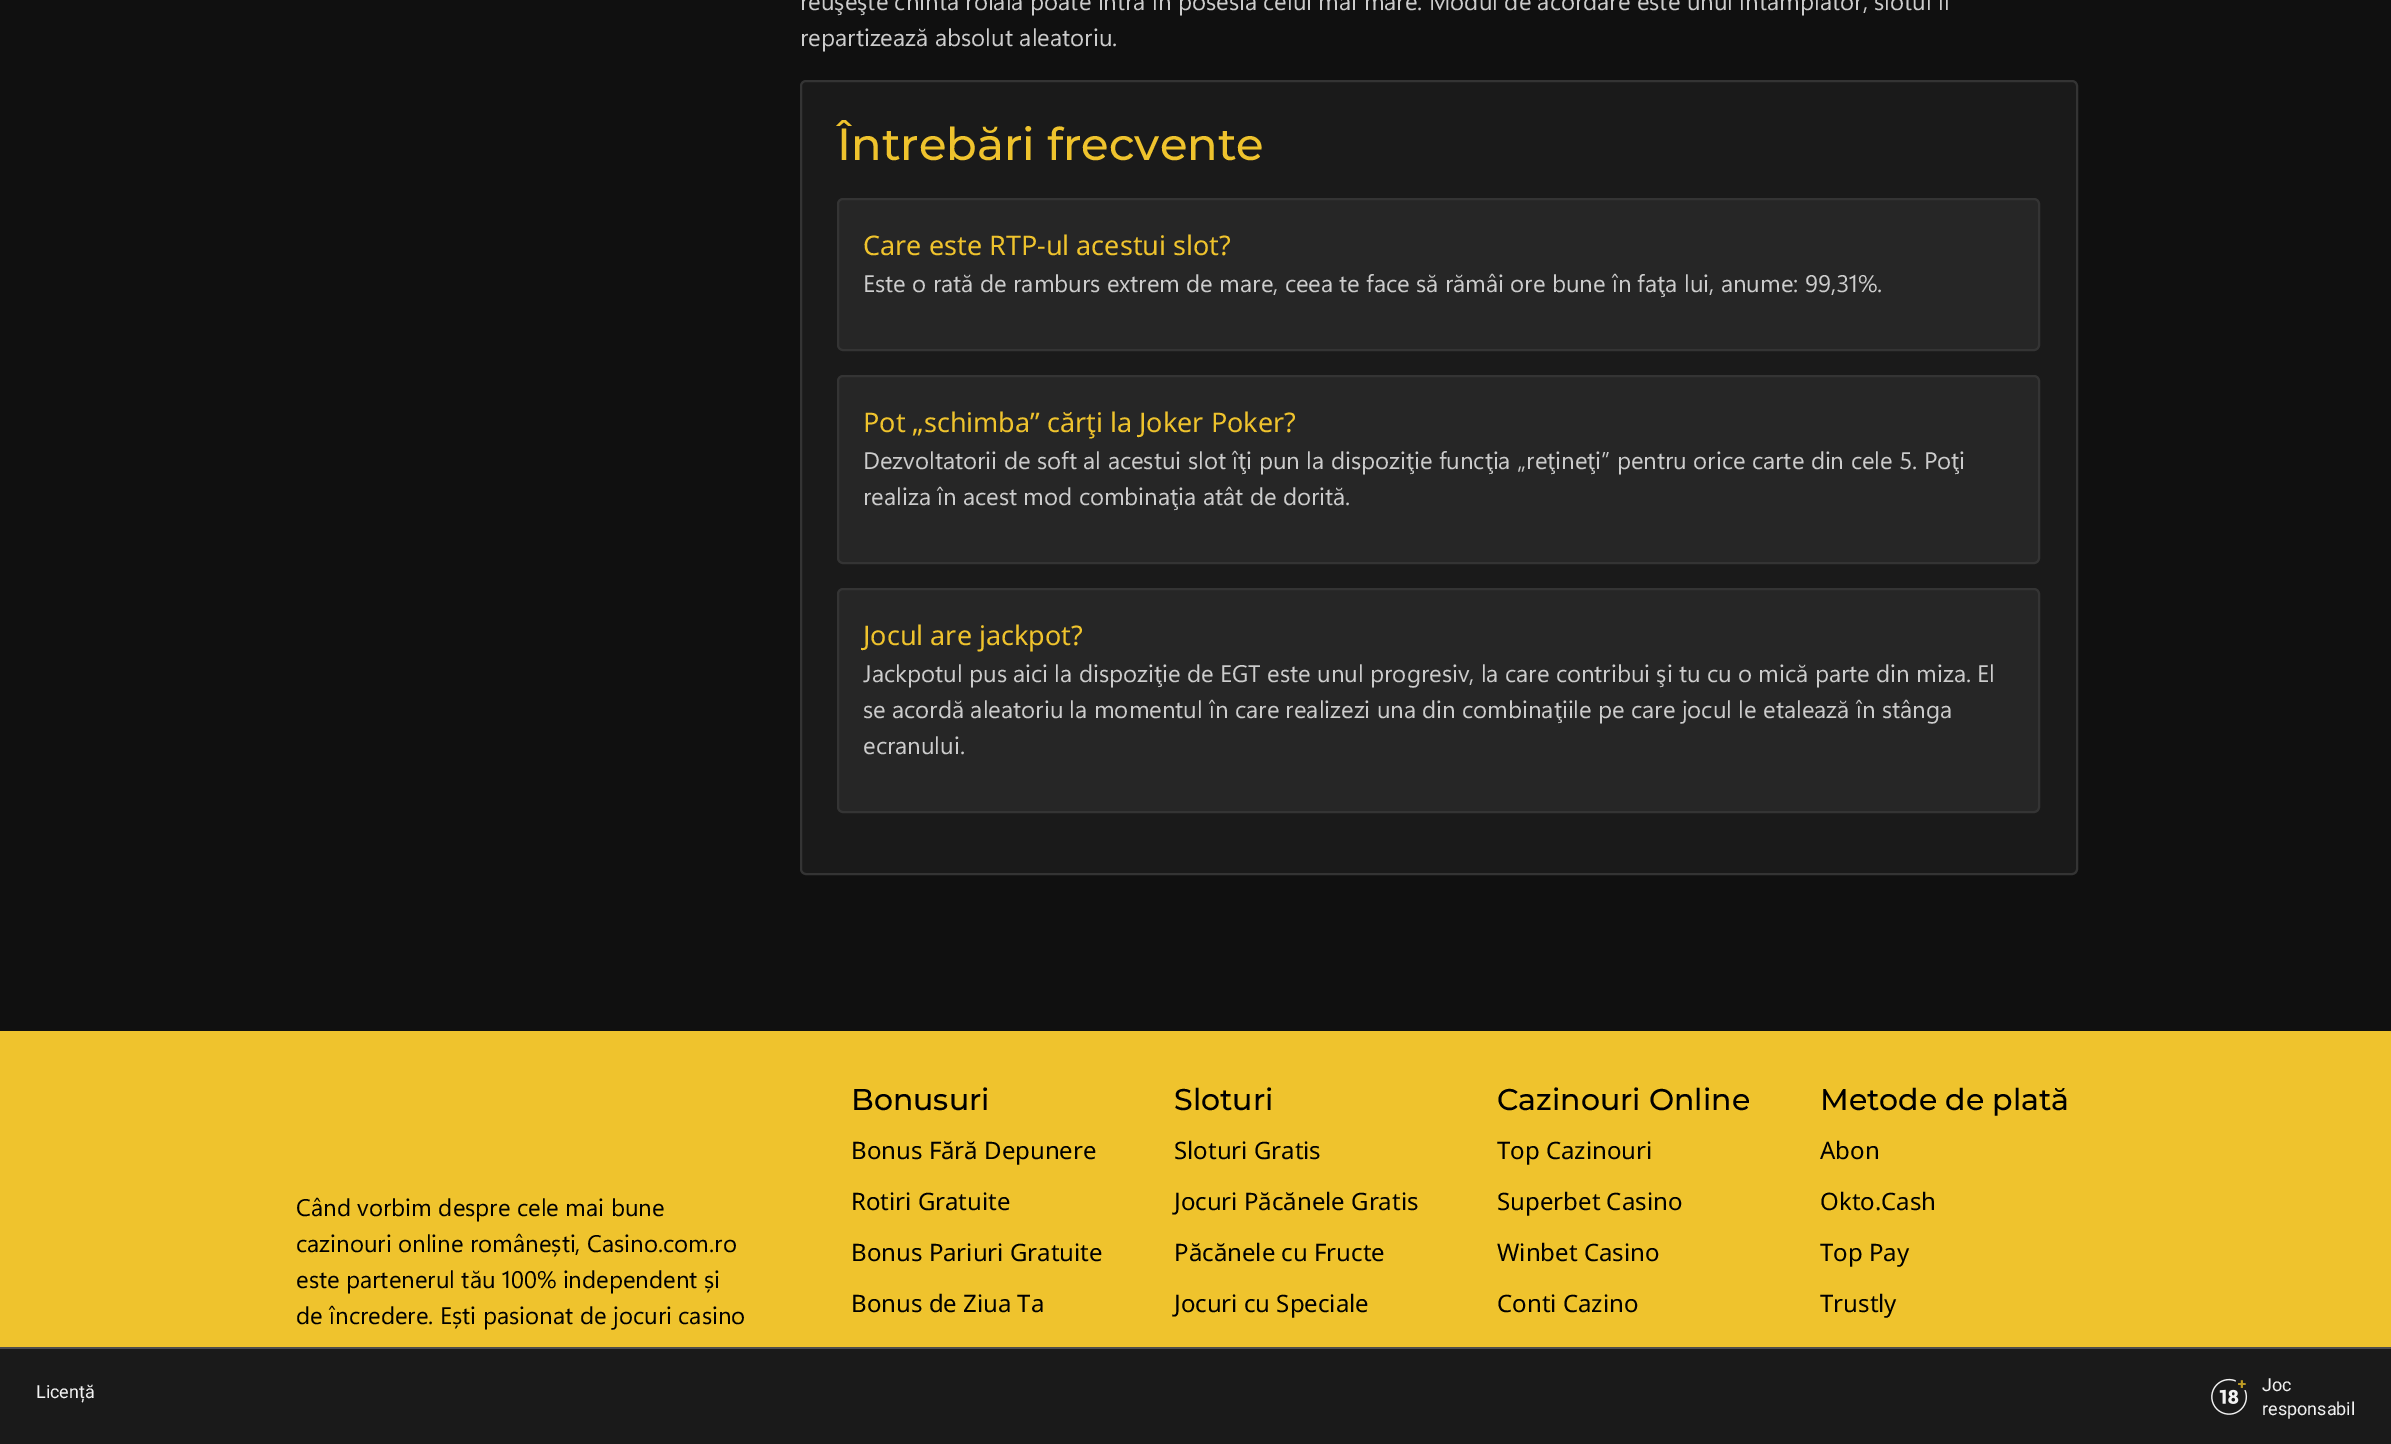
%!PS
<< /PageSize [2391 1444] >> setpagedevice
/rgb { 3 { 255 div 3 1 roll } repeat setrgbcolor } def
/font { [ exch dup neg 0 0 3 -1 roll 0 0 ] selectfont } def
/roundrect { 5 dict begin { /r /h /w /y /x } { exch def } forall
  x r add y moveto x w add y 2 copy h add r arct x w add y h add x 1 index r arct
  x y h add x y r arct x y 2 copy exch w add exch r arct closepath end } def
/picture { 5 dict begin { /h /w /y /x /name } { exch def } forall
  gsave x y translate w h scale
  w h 8 [w 0 0 h 0 0] name (r) file false 3 colorimage grestore end } def
0 1444 translate 1 -1 scale
4 setmiterlimit
16 16 16 rgb
0 0 2391 1444 rectfill
26 26 26 rgb
801 81 1276 793 5 roundrect gsave fill grestore
52 52 52 rgb
2 setlinewidth
stroke
38 38 38 rgb
838 199 1201 151 5 roundrect gsave fill grestore
52 52 52 rgb
stroke
38 38 38 rgb
838 376 1201 187 5 roundrect gsave fill grestore
52 52 52 rgb
stroke
38 38 38 rgb
838 589 1201 223 5 roundrect gsave fill grestore
52 52 52 rgb
stroke
[
  [0 1031 2391 316 239 195 45]
  [0 1349 2391 95 26 26 26]
  [0 1347 2391 2 77 77 77]
] { aload pop rgb rectfill } forall
(img/1.rgb) 2211 1378 37 37 picture
/SegoeUI-Regular 24 font
204 204 204 rgb
800 10 moveto -0.2 0 32 (reuşeşte chinta roială poate intra în posesia celui mai mare. Modul de acordare este unul întâmplător, slotul îl) widthshow
800 46 moveto (repartizează absolut aleatoriu.) show
/Montserrat-Medium 45 font
239 195 45 rgb
837 160 moveto (Întrebări frecvente) show
/NotoSans-Regular 27 font
863 255 moveto (Care este RTP-ul acestui slot?) show
/SegoeUI-Regular 24 font
204 204 204 rgb
863 292 moveto -0.25 0 32 (Este o rată de ramburs extrem de mare, ceea te face să rămâi ore bune în faţa lui, anume: 99,31%.) widthshow
/NotoSans-Regular 27 font
239 195 45 rgb
863 432 moveto (Pot „schimba” cărţi la Joker Poker?) show
/SegoeUI-Regular 24 font
204 204 204 rgb
863 469 moveto -0.1 0 32 (Dezvoltatorii de soft al acestui slot îţi pun la dispoziţie funcţia „reţineţi” pentru orice carte din cele 5. Poţi) widthshow
863 505 moveto -0.25 0 32 (realiza în acest mod combinaţia atât de dorită.) widthshow
/NotoSans-Regular 27 font
239 195 45 rgb
863 645 moveto (Jocul are jackpot?) show
/SegoeUI-Regular 24 font
204 204 204 rgb
863 682 moveto -0.2 0 32 (Jackpotul pus aici la dispoziţie de EGT este unul progresiv, la care contribui şi tu cu o mică parte din miza. El) widthshow
863 718 moveto -0.25 0 32 (se acordă aleatoriu la momentul în care realizezi una din combinaţiile pe care jocul le etalează în stânga) widthshow
863 754 moveto (ecranului.) show
0 0 0 rgb
296 1216 moveto (Când vorbim despre cele mai bune) show
296 1252 moveto (cazinouri online românești, Casino.com.ro) show
296 1288 moveto -0.2 0 32 (este partenerul tău 100% independent și) widthshow
296 1324 moveto (de încredere. Ești pasionat de jocuri casino) show
/Montserrat-Medium 30 font
851 1110 moveto (Bonusuri) show
/NotoSans-Regular 24 font
[
  [(Bonus Fără Depunere) 851 1159]
  [(Rotiri Gratuite) 851 1210]
  [(Bonus Pariuri Gratuite) 851 1261]
  [(Bonus de Ziua Ta) 851 1312]
] { aload pop moveto show } forall
/Montserrat-Medium 30 font
1174 1110 moveto (Sloturi) show
/NotoSans-Regular 24 font
[
  [(Sloturi Gratis) 1174 1159]
  [(Jocuri Păcănele Gratis) 1174 1210]
  [(Păcănele cu Fructe) 1174 1261]
  [(Jocuri cu Speciale) 1174 1312]
] { aload pop moveto show } forall
/Montserrat-Medium 30 font
1497 1110 moveto (Cazinouri Online) show
/NotoSans-Regular 24 font
[
  [(Top Cazinouri) 1497 1159]
  [(Superbet Casino) 1497 1210]
  [(Winbet Casino) 1497 1261]
  [(Conti Cazino) 1497 1312]
] { aload pop moveto show } forall
/Montserrat-Medium 30 font
1820 1110 moveto (Metode de plată) show
/NotoSans-Regular 24 font
[
  [(Abon) 1820 1159]
  [(Okto.Cash) 1820 1210]
  [(Top Pay) 1820 1261]
  [(Trustly) 1820 1312]
] { aload pop moveto show } forall
/Roboto-Regular 18 font
242 242 242 rgb
[
  [(Licență) 36 1398]
  [(Joc) 2262 1391]
  [(responsabil) 2262 1415]
] { aload pop moveto show } forall
showpage
